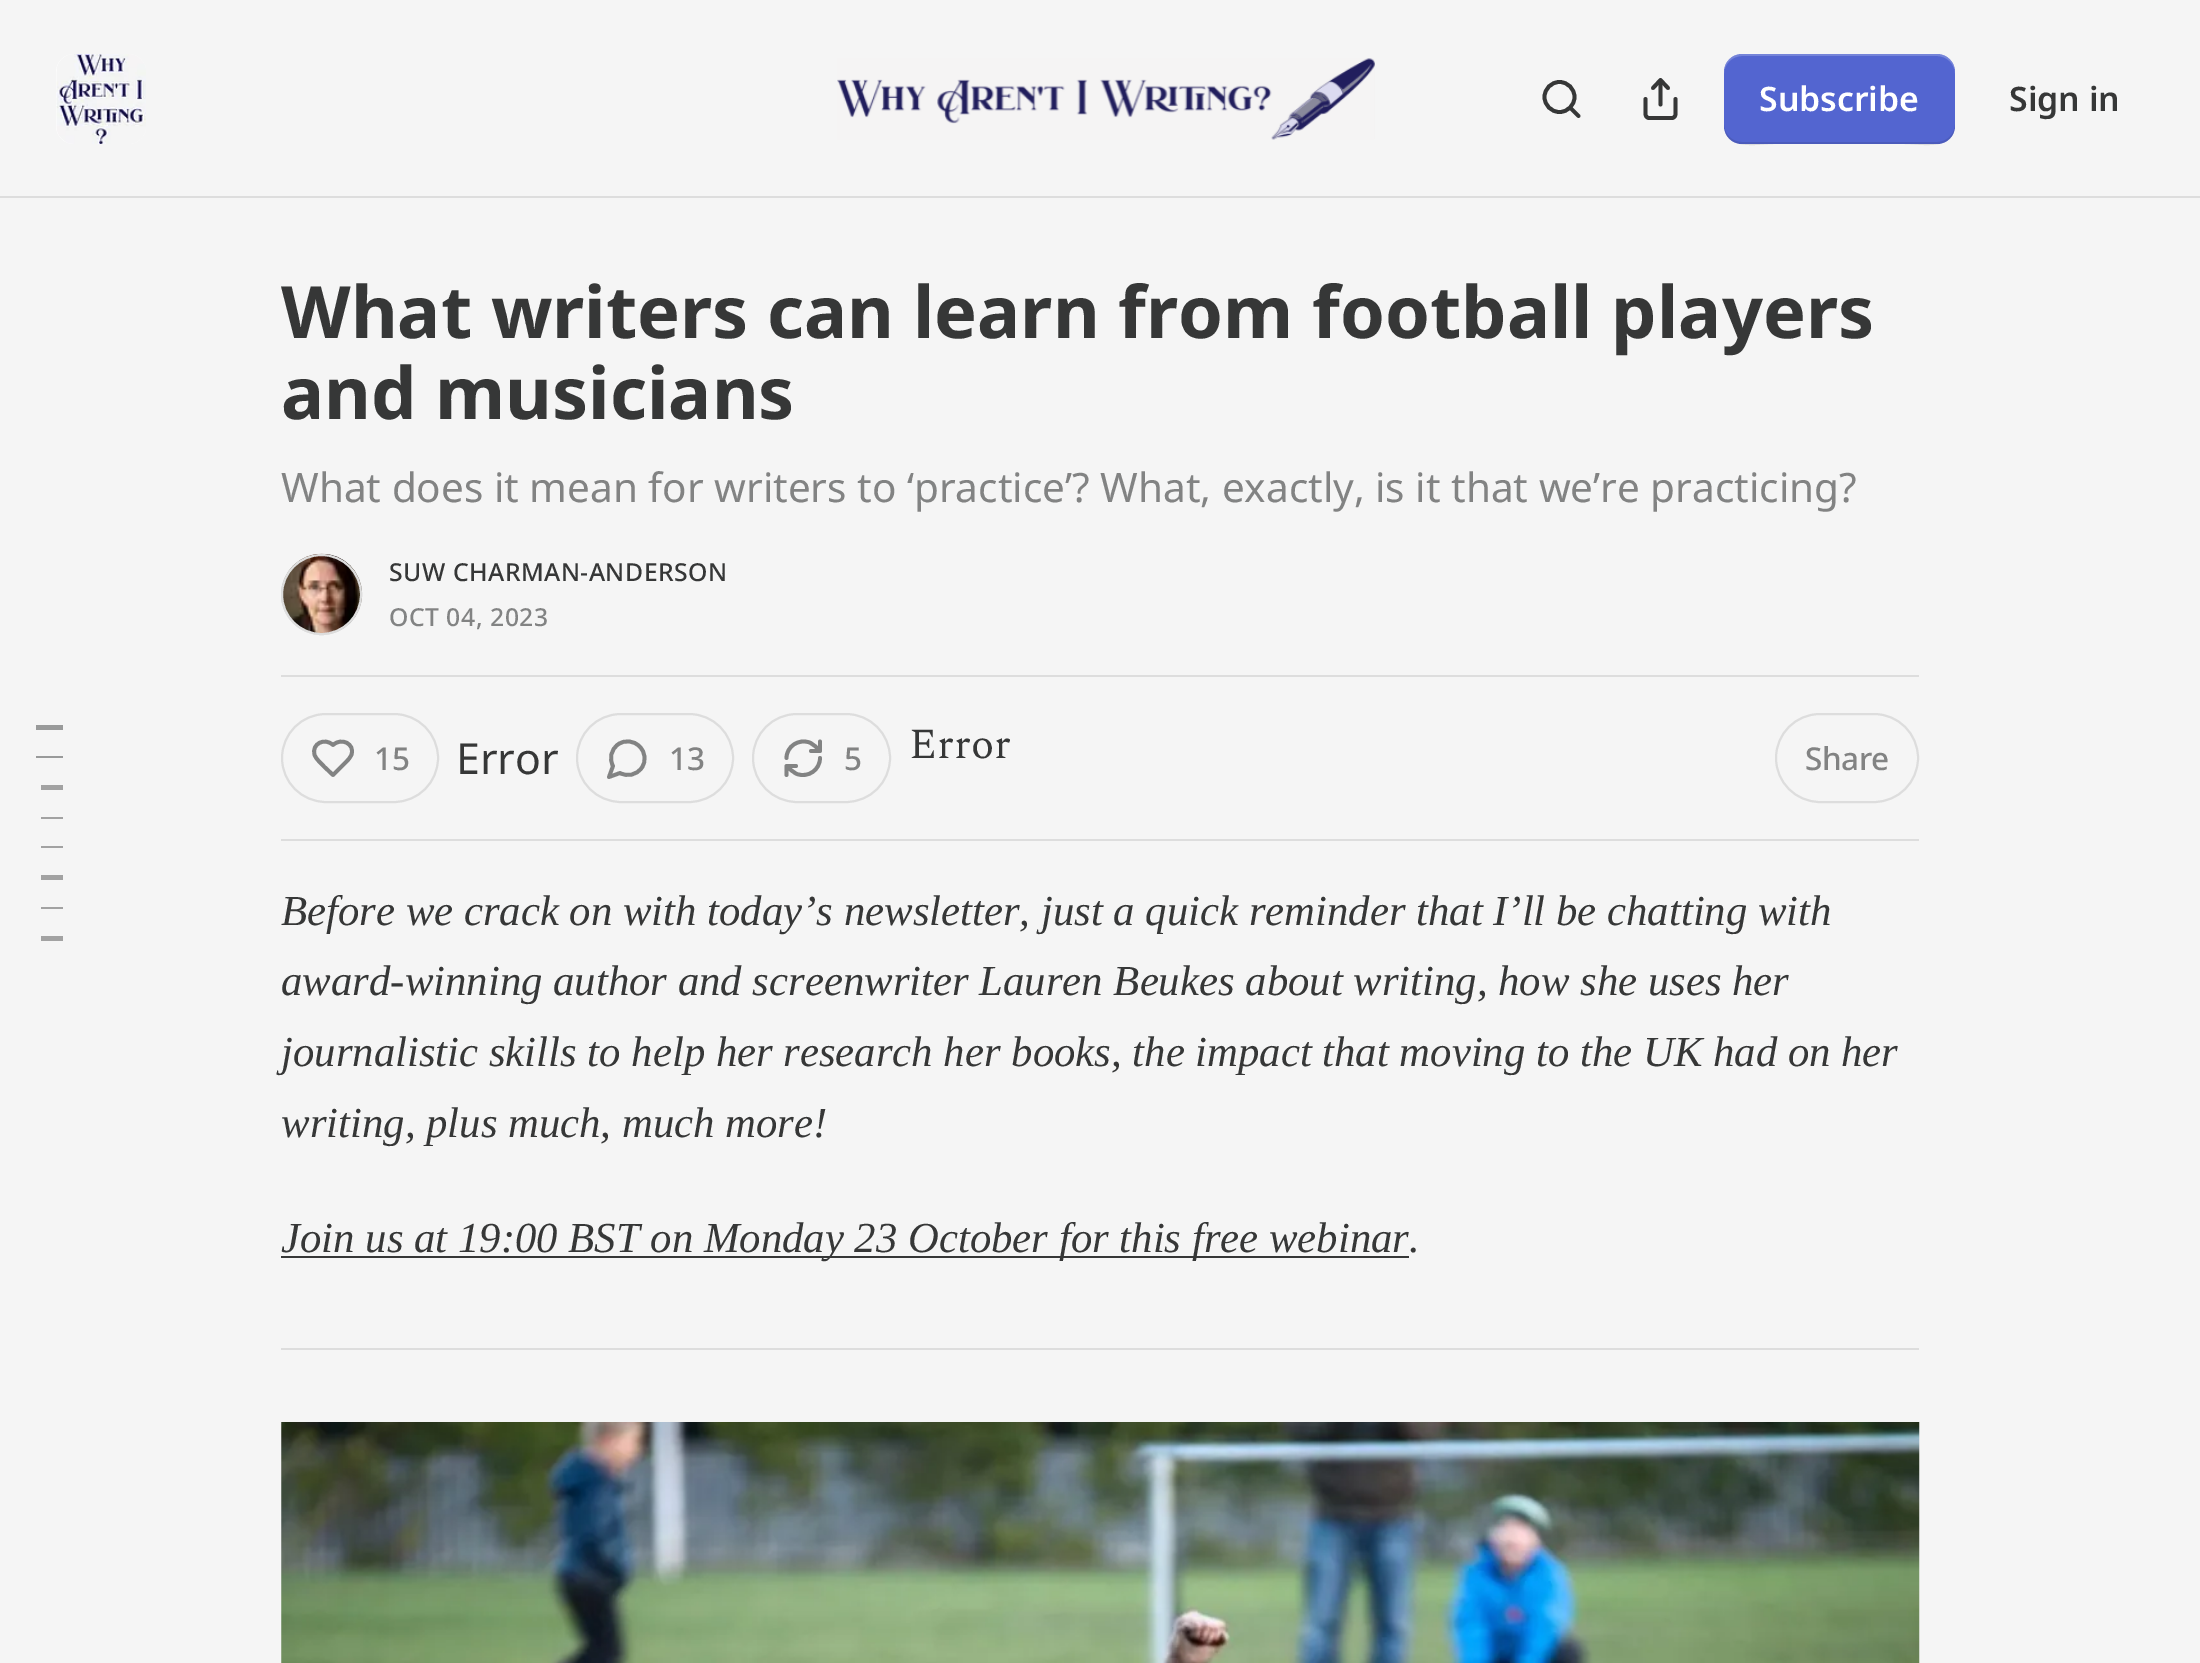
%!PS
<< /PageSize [2200 1663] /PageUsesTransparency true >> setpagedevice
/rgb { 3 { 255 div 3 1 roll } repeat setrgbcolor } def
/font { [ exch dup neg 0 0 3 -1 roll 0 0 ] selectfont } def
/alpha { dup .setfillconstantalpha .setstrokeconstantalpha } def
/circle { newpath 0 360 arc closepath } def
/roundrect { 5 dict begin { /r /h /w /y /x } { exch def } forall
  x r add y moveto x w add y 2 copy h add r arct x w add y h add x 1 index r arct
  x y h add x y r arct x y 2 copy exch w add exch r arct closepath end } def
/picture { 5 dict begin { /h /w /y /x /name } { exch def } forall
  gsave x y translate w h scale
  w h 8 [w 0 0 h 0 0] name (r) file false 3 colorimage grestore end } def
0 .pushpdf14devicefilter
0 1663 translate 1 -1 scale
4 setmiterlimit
245 245 245 rgb
0 0 2200 1663 rectfill
221 221 221 rgb
0 196 2200 2 rectfill
255 255 255 rgb
56 54 90 90 18 roundrect fill
(img/1.rgb) 56 54 90 90 picture
(img/2.rgb) 837 58 538 82 picture
54 55 55 rgb
3.8 setlinewidth
1559.5 97 15 circle stroke
1 setlinecap
1 setlinejoin
1578.5 116 moveto 1570.5 108 lineto stroke
1645.5 99 moveto 1645.5 114 lineto 1645.5 116 1647 118 1649 118 curveto 1672 118 lineto 1674 118 1675.5 116 1675.5 114 curveto 1675.5 99 lineto 1668 88 moveto 1660.5 80 lineto 1653 88 lineto 1660.5 80 moveto 1660.5 104.5 lineto stroke
83 101 208 rgb
1724 54 231 90 18 roundrect fill
0.1 alpha
0 0 0 rgb
1724 124 moveto 1724 152 1757 144 1774 144 curveto 1904 144 lineto 1922 144 1955 152 1955 124 curveto 1955 134 1947 142 1937 142 curveto 1742 142 lineto 1732 142 1724 134 1724 124 curveto closepath fill
0.2 alpha
255 255 255 rgb
1742 56 moveto 1937 56 lineto 1947 56 1955 64 1955 74 curveto 1955 46 1922 54 1904 54 curveto 1774 54 lineto 1757 54 1724 46 1724 74 curveto 1724 64 1732 56 1742 56 curveto closepath fill
1 alpha
221 221 221 rgb
2 setlinewidth
0 setlinecap
0 setlinejoin
321.5 594.5 39.5 circle stroke
(img/3.rgb) 281 553 81 82 picture
321.5 594.5 39.5 circle stroke
281 675 1638 2 rectfill
281 839 1638 2 rectfill
282 714 156 88 44 roundrect stroke
130 131 131 rgb
3.8 setlinewidth
1 setlinecap
1 setlinejoin
346 762 moveto 348 760 350.5 757.5 351.5 754.5 curveto 355 744 341.5 737 333 745 curveto 324.5 737 311.5 744 314.5 754.5 curveto 316 759.5 321 763 324 766.5 curveto 333 775 lineto closepath stroke
221 221 221 rgb
2 setlinewidth
0 setlinecap
0 setlinejoin
577 714 156 88 44 roundrect stroke
130 131 131 rgb
3.8 setlinewidth
1 setlinecap
1 setlinejoin
620 773 moveto 627.5 777 636.5 775 641.5 768 curveto 646.5 761.5 645.5 752 639.5 746.5 curveto 634 740.5 624.5 739.5 618 744.5 curveto 611 749.5 609 758.5 613 766 curveto 609 777 lineto closepath stroke
221 221 221 rgb
2 setlinewidth
0 setlinecap
0 setlinejoin
753 714 137 88 44 roundrect stroke
130 131 131 rgb
3.8 setlinewidth
1 setlinecap
1 setlinejoin
820 741.5 moveto 820 751 lineto 820 751 moveto 811 751 lineto 820 751 moveto 817 748 813.5 744 809.5 742.5 curveto 798.5 738.5 786.5 746.5 786.5 758 curveto 786.5 775 moveto 786.5 766 lineto 786.5 766 moveto 796 766 lineto 786.5 766 moveto 789.5 768.5 793 772.5 797 774 curveto 808 778 820 770 820 758 curveto stroke
221 221 221 rgb
2 setlinewidth
0 setlinecap
0 setlinejoin
1776 714 142 88 44 roundrect stroke
[
  [36 725 27 5 153 154 154]
  [36 756 27 2 153 154 154]
  [41 785 22 5 162 162 162]
  [41 817 22 2 162 162 162]
  [41 846 22 2 162 162 162]
  [41 875 22 5 162 162 162]
  [41 907 22 2 162 162 162]
  [41 936 22 5 162 162 162]
  [281 1256 1128 2 54 55 55]
  [281 1348 1638 2 221 221 221]
] { aload pop rgb rectfill } forall
(img/4.rgb) 281 1422 1639 241 picture
/NotoSans-SemiBold 33.75 font
255 255 255 rgb
1759 111 moveto (Subscribe) show
54 55 55 rgb
2009 111 moveto (Sign in) show
/NotoSans-Bold 72 font
281 338 moveto (What writers can learn from football players) show
281 419 moveto (and musicians) show
/NotoSans-Regular 40.5 font
130 131 131 rgb
281 502 moveto (What does it mean for writers to ‘practice’? What, exactly, is it that we’re practicing?) show
/NotoSans-Medium 24.75 font
54 55 55 rgb
389 581 moveto 0.5 0 (SUW CHARMAN-ANDERSON) ashow
130 131 131 rgb
389 626 moveto 0.5 0 (OCT 04, 2023) ashow
/NotoSans-Medium 31.5 font
374 770 moveto -0.5 0 (15) ashow
/NotoSans-Regular 42.75 font
54 55 55 rgb
456 774 moveto (Error) show
/NotoSans-Medium 31.5 font
130 131 131 rgb
669 770 moveto -0.5 0 (13) ashow
844 770 moveto -0.5 0 (5) ashow
/Spectral-Regular 42.75 font
54 55 55 rgb
909 758 moveto (Error) show
/NotoSans-Medium 31.5 font
130 131 131 rgb
1805 770 moveto -0.5 0 (Share) ashow
/LiberationSerif-Italic 42.75 font
54 55 55 rgb
[
  [(Before we crack on with today’s newsletter, just a quick reminder that I’ll be chatting with) 281 925]
  [(award-winning author and screenwriter Lauren Beukes about writing, how she uses her) 281 995]
  [(journalistic skills to help her research her books, the impact that moving to the UK had on her) 281 1066]
  [(writing, plus much, much more!) 281 1137]
  [(Join us at 19:00 BST on Monday 23 October for this free webinar.) 281 1252]
] { aload pop moveto show } forall
.poppdf14devicefilter showpage
